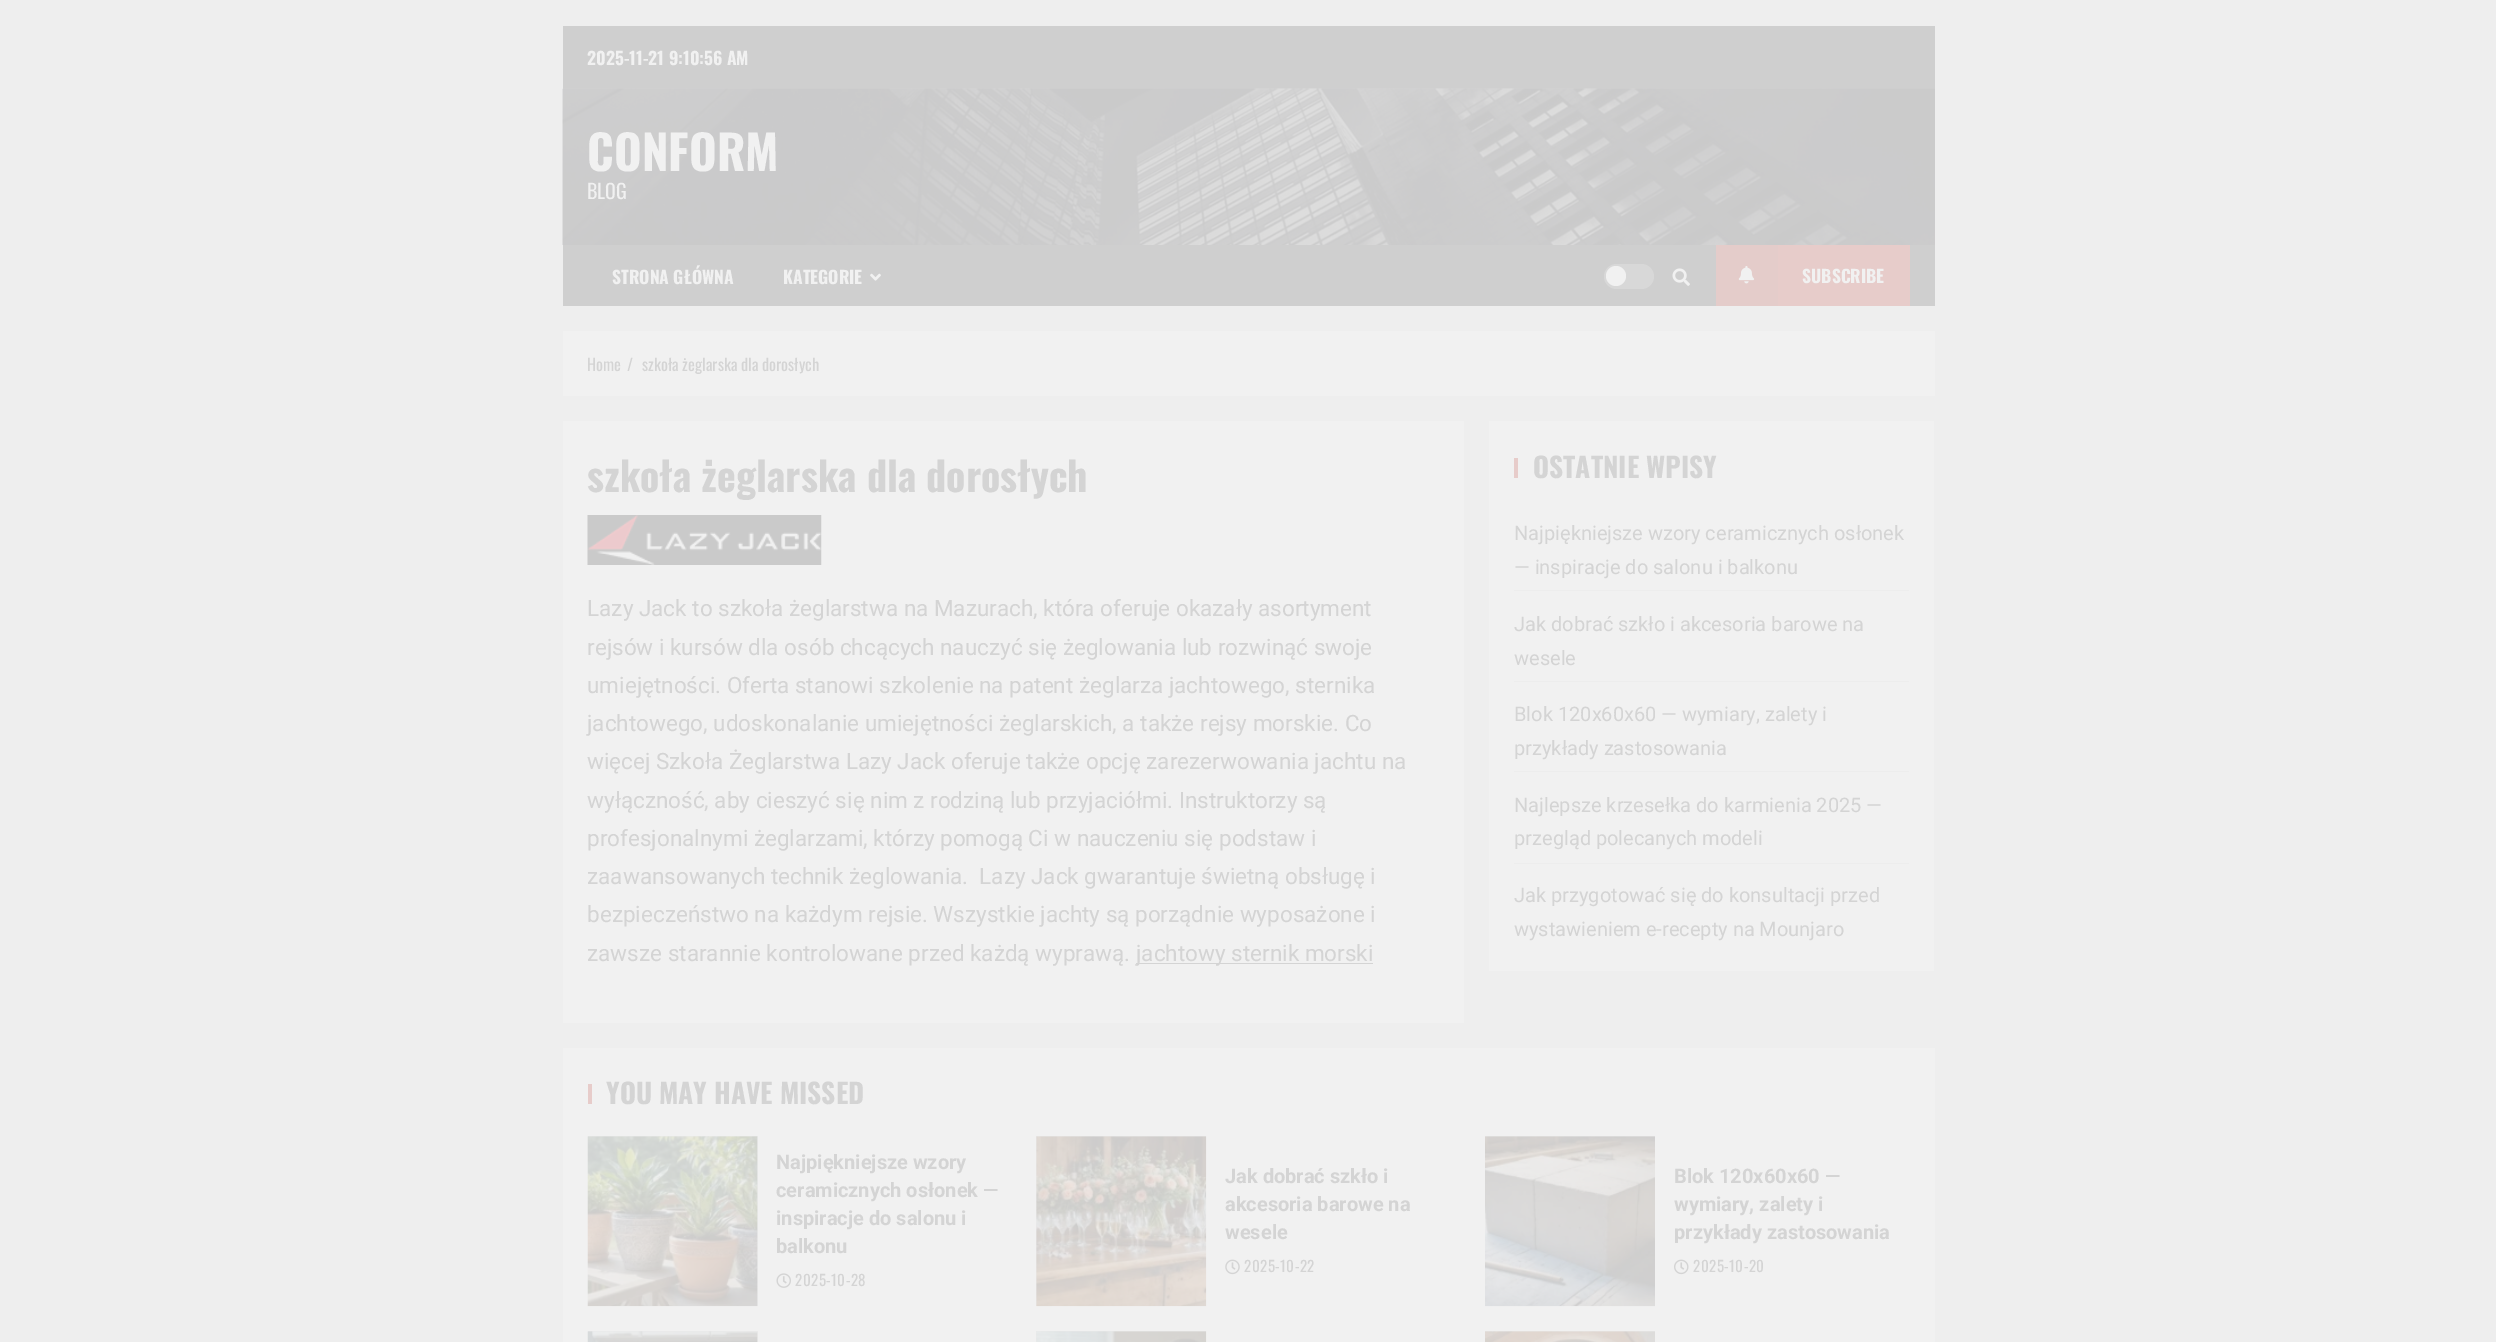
%!PS
<< /PageSize [2496 1342] >> setpagedevice
/rgb { 3 { 255 div 3 1 roll } repeat setrgbcolor } def
/font { [ exch dup neg 0 0 3 -1 roll 0 0 ] selectfont } def
/circle { newpath 0 360 arc closepath } def
/roundrect { 5 dict begin { /r /h /w /y /x } { exch def } forall
  x r add y moveto x w add y 2 copy h add r arct x w add y h add x 1 index r arct
  x y h add x y r arct x y 2 copy exch w add exch r arct closepath end } def
/picture { 5 dict begin { /h /w /y /x /name } { exch def } forall
  gsave x y translate w h scale
  w h 8 [w 0 0 h 0 0] name (r) file false 3 colorimage grestore end } def
0 1342 translate 1 -1 scale
4 setmiterlimit
238 238 238 rgb
0 0 2496 1342 rectfill
207 207 207 rgb
563 26 1372 63 rectfill
(img/1.rgb) 562 88 1373 157 picture
563 245 1372 61 rectfill
(img/2.rgb) 870 273 11 8 picture
216 216 216 rgb
1604 264 50 25 12.5 roundrect fill
241 241 241 rgb
1616 276 10 circle fill
(img/3.rgb) 1672 268 18 18 picture
231 204 202 rgb
1778 245 132 61 rectfill
228 204 202 rgb
1716 245 62 61 rectfill
(img/4.rgb) 1738 266 17 18 picture
241 241 241 rgb
563 331 1372 65 rectfill
563 421 901 602 rectfill
(img/5.rgb) 587 515 235 50 picture
[
  [1136 963 237 1 212 212 212]
  [1489 421 445 550 241 241 241]
  [1514 458 4 20 231 204 202]
  [1514 590 395 1 237 237 237]
  [1514 681 395 1 237 237 237]
  [1514 771 395 1 237 237 237]
  [1514 863 395 1 237 237 237]
  [563 1048 1372 294 241 241 241]
  [588 1084 4 20 231 204 202]
  [588 1136 170 170 233 233 233]
] { aload pop rgb rectfill } forall
(img/6.rgb) 587 1136 171 171 picture
(img/7.rgb) 776 1273 15 15 picture
1036 1136 170 170 rectfill
(img/8.rgb) 1036 1136 171 171 picture
(img/9.rgb) 1225 1259 15 16 picture
1485 1136 170 1 rectfill
(img/10.rgb) 1485 1136 170 171 picture
(img/11.rgb) 1674 1259 15 16 picture
588 1331 170 11 rectfill
(img/12.rgb) 587 1331 171 11 picture
1036 1331 170 11 rectfill
(img/13.rgb) 1036 1331 171 11 picture
1485 1331 170 1 rectfill
(img/14.rgb) 1485 1331 170 11 picture
/Oswald-Bold 17.5 font
241 241 241 rgb
587 65 moveto (2025-11-21 9:10:56 AM) show
/Oswald-Bold 47.5 font
587 171 moveto (CONFORM) show
/Oswald-Regular 20 font
587 199 moveto (BLOG) show
/Oswald-Bold 17.5 font
[
  [(STRONA GŁÓWNA) 612 284]
  [(KATEGORIE) 783 284]
  [(SUBSCRIBE) 1802 283]
] { aload pop moveto show } forall
/Oswald-Regular 16.25 font
212 212 212 rgb
[
  [(Home) 587 371]
  [(/) 627 371]
  [(szkoła żeglarska dla dorosłych) 642 371]
] { aload pop moveto show } forall
/Oswald-Bold 40 font
587 492 moveto (szkoła żeglarska dla dorosłych) show
/Roboto-Regular 22.5 font
[
  [(Lazy Jack to szkoła żeglarstwa na Mazurach, która oferuje okazały asortyment) 587 616]
  [(rejsów i kursów dla osób chcących nauczyć się żeglowania lub rozwinąć swoje) 587 655]
  [(umiejętności. Oferta stanowi szkolenie na patent żeglarza jachtowego, sternika) 587 693]
  [(jachtowego, udoskonalanie umiejętności żeglarskich, a także rejsy morskie. Co) 587 731]
  [(więcej Szkoła Żeglarstwa Lazy Jack oferuje także opcję zarezerwowania jachtu na) 587 769]
  [(wyłączność, aby cieszyć się nim z rodziną lub przyjaciółmi. Instruktorzy są) 587 808]
  [(profesjonalnymi żeglarzami, którzy pomogą Ci w nauczeniu się podstaw i) 587 846]
  [(zaawansowanych technik żeglowania.  Lazy Jack gwarantuje świetną obsługę i) 587 884]
  [(bezpieczeństwo na każdym rejsie. Wszystkie jachty są porządnie wyposażone i) 587 922]
  [(zawsze starannie kontrolowane przed każdą wyprawą.) 587 961]
  [(jachtowy sternik morski) 1136 961]
] { aload pop moveto show } forall
/Oswald-Bold 27.5 font
1533 478 moveto (OSTATNIE WPISY) show
/Roboto-Regular 20 font
[
  [(Najpiękniejsze wzory ceramicznych osłonek) 1514 540]
  [(— inspiracje do salonu i balkonu) 1514 574]
  [(Jak dobrać szkło i akcesoria barowe na) 1514 631]
  [(wesele) 1514 665]
  [(Blok 120x60x60 — wymiary, zalety i) 1514 721]
  [(przykłady zastosowania) 1514 755]
  [(Najlepsze krzesełka do karmienia 2025 —) 1514 812]
  [(przegląd polecanych modeli) 1514 845]
  [(Jak przygotować się do konsultacji przed) 1514 902]
  [(wystawieniem e-recepty na Mounjaro) 1514 936]
] { aload pop moveto show } forall
/Oswald-Bold 27.5 font
606 1104 moveto (YOU MAY HAVE MISSED) show
/Roboto-Bold 20 font
[
  [(Najpiękniejsze wzory) 776 1169]
  [(ceramicznych osłonek —) 776 1197]
  [(inspiracje do salonu i) 776 1225]
  [(balkonu) 776 1253]
] { aload pop moveto show } forall
/Oswald-Regular 15 font
795 1286 moveto 0.5 0 (2025-10-28) ashow
/Roboto-Bold 20 font
[
  [(Jak dobrać szkło i) 1225 1183]
  [(akcesoria barowe na) 1225 1211]
  [(wesele) 1225 1239]
] { aload pop moveto show } forall
/Oswald-Regular 15 font
1244 1272 moveto 0.5 0 (2025-10-22) ashow
/Roboto-Bold 20 font
[
  [(Blok 120x60x60 —) 1674 1183]
  [(wymiary, zalety i) 1674 1211]
  [(przykłady zastosowania) 1674 1239]
] { aload pop moveto show } forall
/Oswald-Regular 15 font
1693 1272 moveto 0.5 0 (2025-10-20) ashow
showpage
